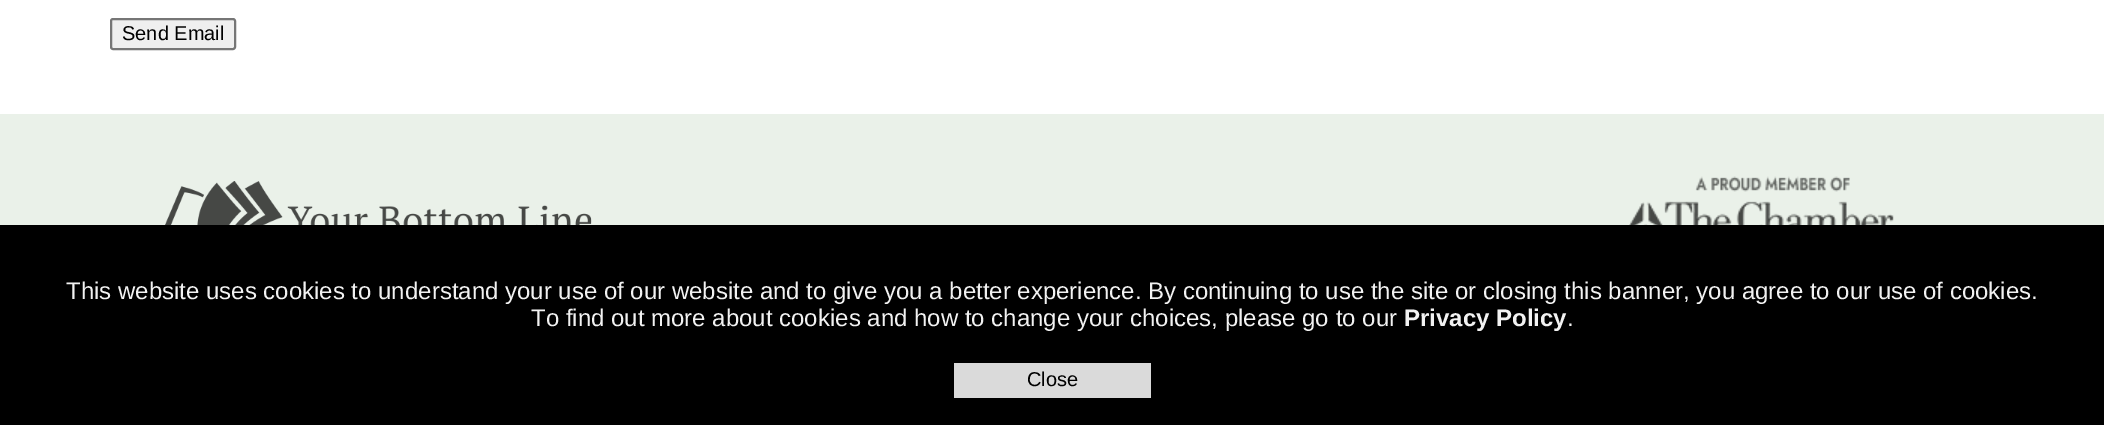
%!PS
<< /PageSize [2104 425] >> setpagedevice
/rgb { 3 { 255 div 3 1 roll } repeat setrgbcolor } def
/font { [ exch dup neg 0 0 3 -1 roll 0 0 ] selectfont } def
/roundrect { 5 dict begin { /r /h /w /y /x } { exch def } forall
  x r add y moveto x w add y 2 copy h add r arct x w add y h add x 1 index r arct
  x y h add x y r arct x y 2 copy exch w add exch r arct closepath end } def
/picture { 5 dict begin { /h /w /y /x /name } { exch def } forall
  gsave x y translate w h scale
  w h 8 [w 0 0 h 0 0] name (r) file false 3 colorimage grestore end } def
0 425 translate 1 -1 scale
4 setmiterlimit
255 255 255 rgb
0 0 2104 425 rectfill
239 239 239 rgb
111 19 124 30 2 roundrect gsave fill grestore
118 118 118 rgb
2 setlinewidth
stroke
234 241 233 rgb
0 114 2104 111 rectfill
(img/1.rgb) 165 181 427 44 picture
(img/2.rgb) 1629 176 265 49 picture
0 0 0 rgb
0 225 2104 200 rectfill
218 218 218 rgb
954 363 197 35 rectfill
/LiberationSans-Regular 20 font
0 0 0 rgb
122 40 moveto (Send Email) show
/LiberationSans-Regular 24 font
242 242 242 rgb
66 299 moveto (This website uses cookies to understand your use of our website and to give you a better experience. By continuing to use the site or closing this banner, you agree to our use of cookies.) show
531 326 moveto (To find out more about cookies and how to change your choices, please go to our) show
/LiberationSans-Bold 24 font
1404 326 moveto (Privacy Policy) show
/LiberationSans-Regular 24 font
1567 326 moveto (.) show
/LiberationSans-Regular 20 font
0 0 0 rgb
1027 386 moveto (Close) show
showpage
